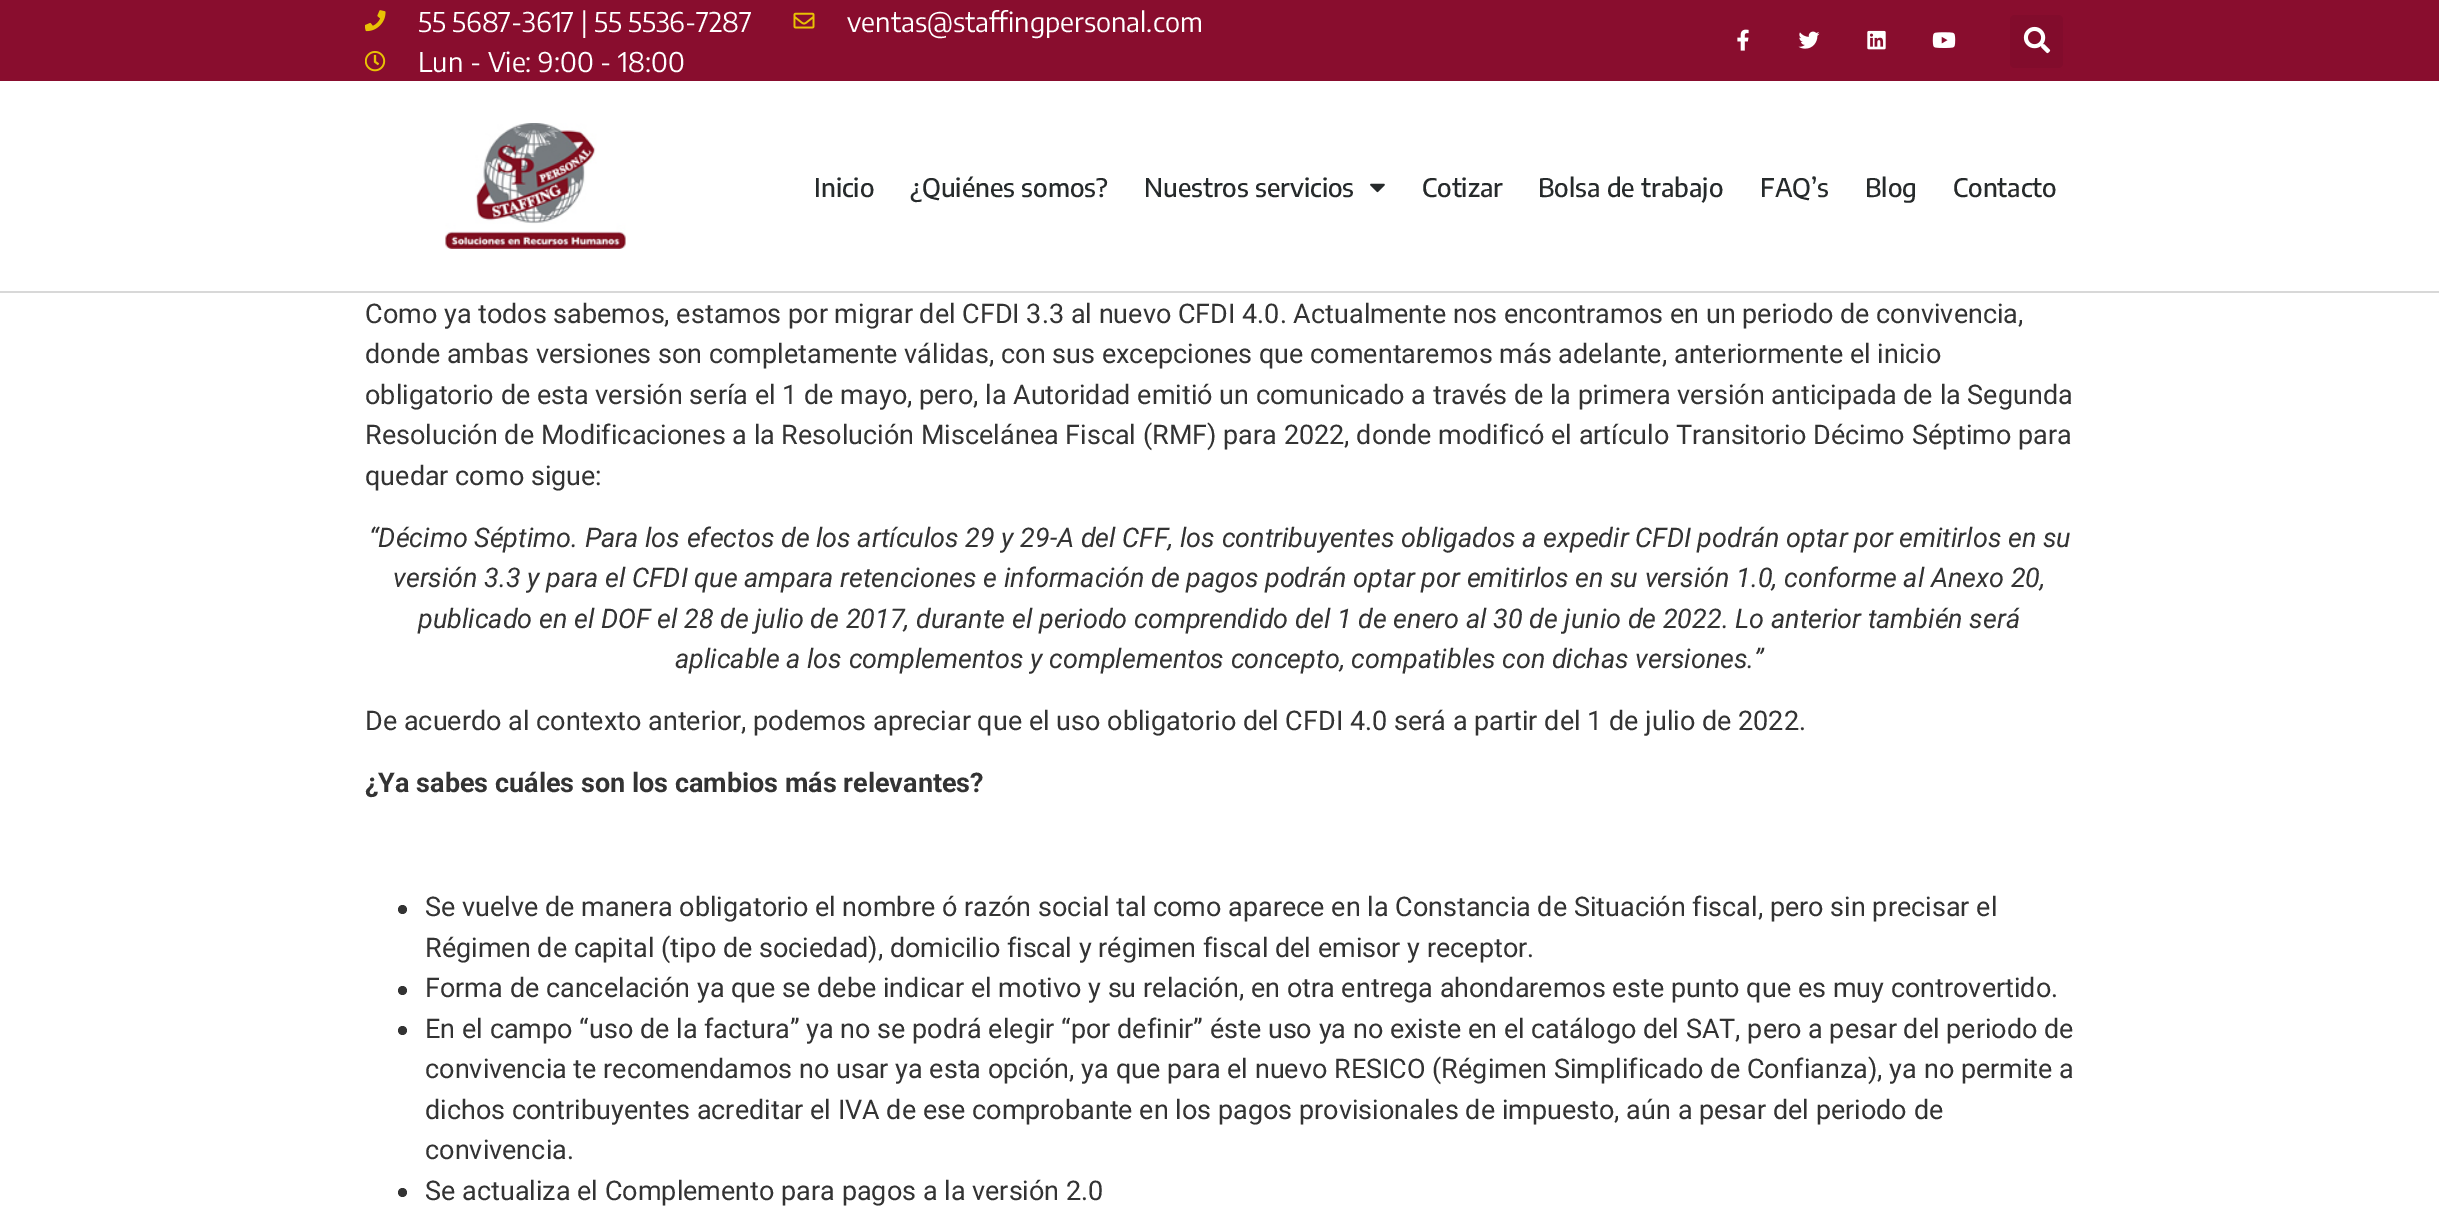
%!PS
<< /PageSize [2439 1217] >> setpagedevice
/rgb { 3 { 255 div 3 1 roll } repeat setrgbcolor } def
/font { [ exch dup neg 0 0 3 -1 roll 0 0 ] selectfont } def
/circle { newpath 0 360 arc closepath } def
/roundrect { 5 dict begin { /r /h /w /y /x } { exch def } forall
  x r add y moveto x w add y 2 copy h add r arct x w add y h add x 1 index r arct
  x y h add x y r arct x y 2 copy exch w add exch r arct closepath end } def
/picture { 5 dict begin { /h /w /y /x /name } { exch def } forall
  gsave x y translate w h scale
  w h 8 [w 0 0 h 0 0] name (r) file false 3 colorimage grestore end } def
0 1217 translate 1 -1 scale
4 setmiterlimit
255 255 255 rgb
0 0 2439 1217 rectfill
137 13 46 rgb
0 0 2439 81 rectfill
(img/1.rgb) 365 10 21 22 picture
(img/2.rgb) 793 12 22 17 picture
(img/3.rgb) 365 51 21 21 picture
(img/4.rgb) 1737 29 12 22 picture
(img/5.rgb) 1798 31 22 18 picture
(img/6.rgb) 1867 30 19 20 picture
(img/7.rgb) 1932 32 24 16 picture
130 12 44 rgb
2010 15 53 53 5 roundrect fill
(img/8.rgb) 2023 26 28 28 picture
216 216 216 rgb
0 291 2439 2 rectfill
(img/9.rgb) 445 123 181 126 picture
(img/10.rgb) 1370 183 15 10 picture
51 51 51 rgb
402.5 909.5 4.5 circle fill
402.5 990.5 4.5 circle fill
402.5 1030.5 4.5 circle fill
402.5 1192.5 4.5 circle fill
/EncodeSansCondensed-Regular 27 font
255 255 255 rgb
[
  [(55 5687-3617 | 55 5536-7287) 418 32]
  [(ventas@staffingpersonal.com) 847 32]
  [(Lun - Vie: 9:00 - 18:00) 418 72]
] { aload pop moveto show } forall
/EncodeSansCondensed-Medium 25.5 font
38 42 43 rgb
[
  [(Inicio) 814 197]
  [(¿Quiénes somos?) 910 197]
  [(Nuestros servicios) 1144 197]
  [(Cotizar) 1422 197]
  [(Bolsa de trabajo) 1538 197]
  [(FAQ’s) 1760 197]
  [(Blog) 1865 197]
  [(Contacto) 1953 197]
] { aload pop moveto show } forall
/Roboto-Regular 27 font
51 51 51 rgb
[
  [(Como ya todos sabemos, estamos por migrar del CFDI 3.3 al nuevo CFDI 4.0. Actualmente nos encontramos en un periodo de convivencia,) 365 323]
  [(donde ambas versiones son completamente válidas, con sus excepciones que comentaremos más adelante, anteriormente el inicio) 365 363]
  [(obligatorio de esta versión sería el 1 de mayo, pero, la Autoridad emitió un comunicado a través de la primera versión anticipada de la Segunda) 365 404]
  [(Resolución de Modificaciones a la Resolución Miscelánea Fiscal \(RMF\) para 2022, donde modificó el artículo Transitorio Décimo Séptimo para) 365 444]
  [(quedar como sigue:) 365 485]
] { aload pop moveto show } forall
/Roboto-Italic 27 font
[
  [(“Décimo Séptimo. Para los efectos de los artículos 29 y 29-A del CFF, los contribuyentes obligados a expedir CFDI podrán optar por emitirlos en su) 369 547]
  [(versión 3.3 y para el CFDI que ampara retenciones e información de pagos podrán optar por emitirlos en su versión 1.0, conforme al Anexo 20,) 393 587]
  [(publicado en el DOF el 28 de julio de 2017, durante el periodo comprendido del 1 de enero al 30 de junio de 2022. Lo anterior también será) 418 628]
  [(aplicable a los complementos y complementos concepto, compatibles con dichas versiones.”) 675 668]
] { aload pop moveto show } forall
/Roboto-Regular 27 font
365 730 moveto (De acuerdo al contexto anterior, podemos apreciar que el uso obligatorio del CFDI 4.0 será a partir del 1 de julio de 2022.) show
/Roboto-Bold 27 font
365 792 moveto (¿Ya sabes cuáles son los cambios más relevantes?) show
/Roboto-Regular 27 font
[
  [(Se vuelve de manera obligatorio el nombre ó razón social tal como aparece en la Constancia de Situación fiscal, pero sin precisar el) 425 916]
  [(Régimen de capital \(tipo de sociedad\), domicilio fiscal y régimen fiscal del emisor y receptor.) 425 957]
  [(Forma de cancelación ya que se debe indicar el motivo y su relación, en otra entrega ahondaremos este punto que es muy controvertido.) 425 997]
  [(En el campo “uso de la factura” ya no se podrá elegir “por definir” éste uso ya no existe en el catálogo del SAT, pero a pesar del periodo de) 425 1038]
  [(convivencia te recomendamos no usar ya esta opción, ya que para el nuevo RESICO \(Régimen Simplificado de Confianza\), ya no permite a) 425 1078]
  [(dichos contribuyentes acreditar el IVA de ese comprobante en los pagos provisionales de impuesto, aún a pesar del periodo de) 425 1119]
  [(convivencia.) 425 1159]
  [(Se actualiza el Complemento para pagos a la versión 2.0) 425 1200]
] { aload pop moveto show } forall
showpage
